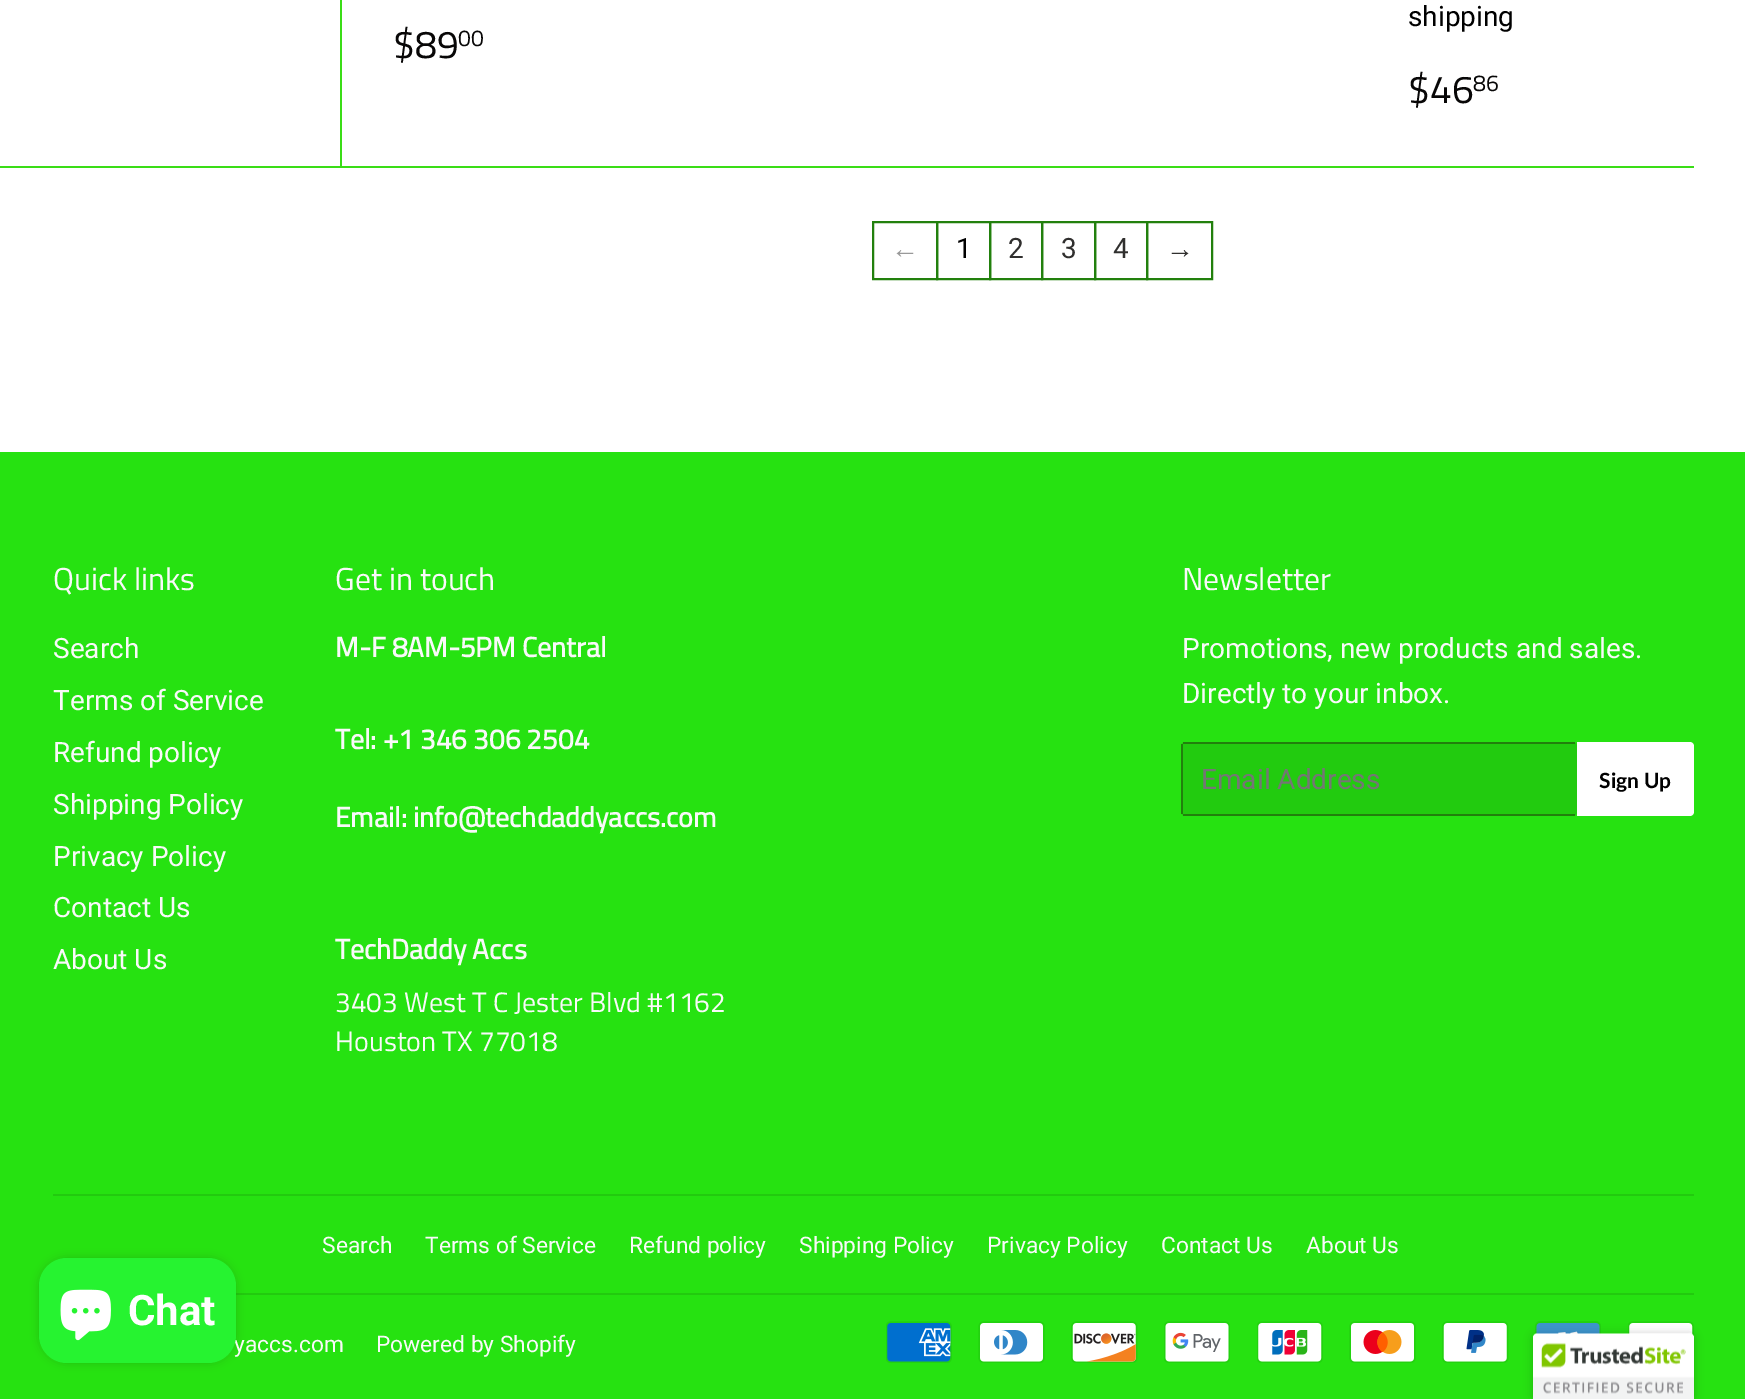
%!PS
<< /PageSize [1745 1399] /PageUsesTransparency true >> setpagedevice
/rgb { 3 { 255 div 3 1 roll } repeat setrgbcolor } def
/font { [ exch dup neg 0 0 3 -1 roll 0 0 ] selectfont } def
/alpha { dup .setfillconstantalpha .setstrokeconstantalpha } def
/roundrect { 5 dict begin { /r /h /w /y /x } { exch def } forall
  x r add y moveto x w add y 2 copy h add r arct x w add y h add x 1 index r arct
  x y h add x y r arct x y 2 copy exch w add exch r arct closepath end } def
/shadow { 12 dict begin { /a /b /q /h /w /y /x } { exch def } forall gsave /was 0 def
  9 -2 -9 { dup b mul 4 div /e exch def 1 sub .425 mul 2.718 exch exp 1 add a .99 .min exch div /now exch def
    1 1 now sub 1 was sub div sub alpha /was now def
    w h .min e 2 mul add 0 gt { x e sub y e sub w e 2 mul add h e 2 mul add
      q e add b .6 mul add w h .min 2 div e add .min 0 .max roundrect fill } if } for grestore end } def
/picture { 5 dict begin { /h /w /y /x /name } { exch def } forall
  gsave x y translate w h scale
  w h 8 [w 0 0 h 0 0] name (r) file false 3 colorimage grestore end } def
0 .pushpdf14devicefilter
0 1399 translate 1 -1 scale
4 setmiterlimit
255 255 255 rgb
0 0 1745 1399 rectfill
58 221 22 rgb
340 0 2 166 rectfill
0 166 1694 2 rectfill
34 128 13 rgb
2 setlinewidth
873 222 64 57 rectstroke
990 222 52 57 rectstroke
937 222 53 57 rectstroke
1042 222 53 57 rectstroke
1095 222 52 57 rectstroke
1147 222 65 57 rectstroke
38 226 17 rgb
0 452 1745 947 rectfill
34 203 15 rgb
1181 742 396 74 4 roundrect fill
[
  [1183 742 392 2 34 128 13]
  [1183 814 392 2 34 128 13]
  [1181 744 2 70 34 128 13]
] { aload pop rgb rectfill } forall
255 255 255 rgb
1577 742 moveto 1690 742 lineto 1692 742 1694 744 1694 746 curveto 1694 812 lineto 1694 814 1692 816 1690 816 curveto 1577 816 lineto closepath fill
34 202 15 rgb
53 1194 1641 2 rectfill
236 1293 1458 2 rectfill
(img/1.rgb) 886 1321 66 42 picture
(img/2.rgb) 978 1321 67 42 picture
(img/3.rgb) 1071 1321 67 42 picture
(img/4.rgb) 1164 1321 66 42 picture
(img/5.rgb) 1257 1321 66 42 picture
(img/6.rgb) 1349 1321 67 42 picture
(img/7.rgb) 1442 1321 67 42 picture
(img/8.rgb) 1535 1321 66 14 picture
(img/9.rgb) 1628 1321 66 17 picture
0 0 0 rgb
39 1258 197 105 28 4.5 0.15 shadow
1533 1334 161 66 4 4.5 0.2 shadow
(img/11.rgb) 1533 1333 161 66 picture
/TitilliumWeb-Regular 39 font
8 7 7 rgb
393 58 moveto ($89) show
/TitilliumWeb-Regular 23 font
458 46 moveto (00) show
/Roboto-Regular 28 font
0 0 0 rgb
1408 26 moveto (shipping) show
/TitilliumWeb-Regular 39 font
8 7 7 rgb
1408 103 moveto ($46) show
/TitilliumWeb-Regular 23 font
1473 91 moveto (86) show
/LiberationSans-Regular 28 font
153 153 153 rgb
891 258 moveto (←) show
/Roboto-Regular 28 font
0 0 0 rgb
956 258 moveto (1) show
48 47 46 rgb
[
  [(2) 1008 258]
  [(3) 1061 258]
  [(4) 1113 258]
] { aload pop moveto show } forall
/LiberationSans-Regular 28 font
1166 258 moveto (→) show
/TitilliumWeb-Regular 31.75 font
249 249 249 rgb
53 590 moveto (Quick links) show
/Roboto-Regular 28 font
[
  [(Search) 53 658]
  [(Terms of Service) 53 710]
  [(Refund policy) 53 762]
  [(Shipping Policy) 53 814]
  [(Privacy Policy) 53 866]
  [(Contact Us) 53 917]
  [(About Us) 53 969]
] { aload pop moveto show } forall
/TitilliumWeb-Regular 31.75 font
335 590 moveto (Get in touch) show
/TitilliumWeb-Bold 28 font
[
  [(M-F 8AM-5PM Central) 335 657]
  [(Tel: +1 346 306 2504) 335 749]
  [(Email: info@techdaddyaccs.com) 335 827]
  [(TechDaddy Accs) 335 959]
] { aload pop moveto show } forall
/TitilliumWeb-Regular 28 font
335 1012 moveto (3403 West T C Jester Blvd #1162) show
335 1051 moveto (Houston TX 77018) show
/TitilliumWeb-Regular 31.75 font
1182 590 moveto (Newsletter) show
/Roboto-Regular 28 font
1182 658 moveto (Promotions, new products and sales.) show
1182 703 moveto (Directly to your inbox.) show
117 117 117 rgb
1201 789 moveto (Email Address) show
/Lato-Bold 21 font
0 0 0 rgb
1599 788 moveto (Sign Up) show
/Roboto-Regular 22.75 font
249 249 249 rgb
[
  [(Search) 322 1253]
  [(Terms of Service) 425 1253]
  [(Refund policy) 629 1253]
  [(Shipping Policy) 799 1253]
  [(Privacy Policy) 987 1253]
  [(Contact Us) 1161 1253]
  [(About Us) 1306 1253]
  [(yaccs.com) 234 1352]
  [(Powered by Shopify) 376 1352]
] { aload pop moveto show } forall
38 243 48 rgb
39 1258 197 105 28 roundrect fill
(img/10.rgb) 60 1289 51 52 picture
/Roboto-Bold 42 font
255 255 255 rgb
128 1325 moveto (Chat) show
.poppdf14devicefilter showpage
